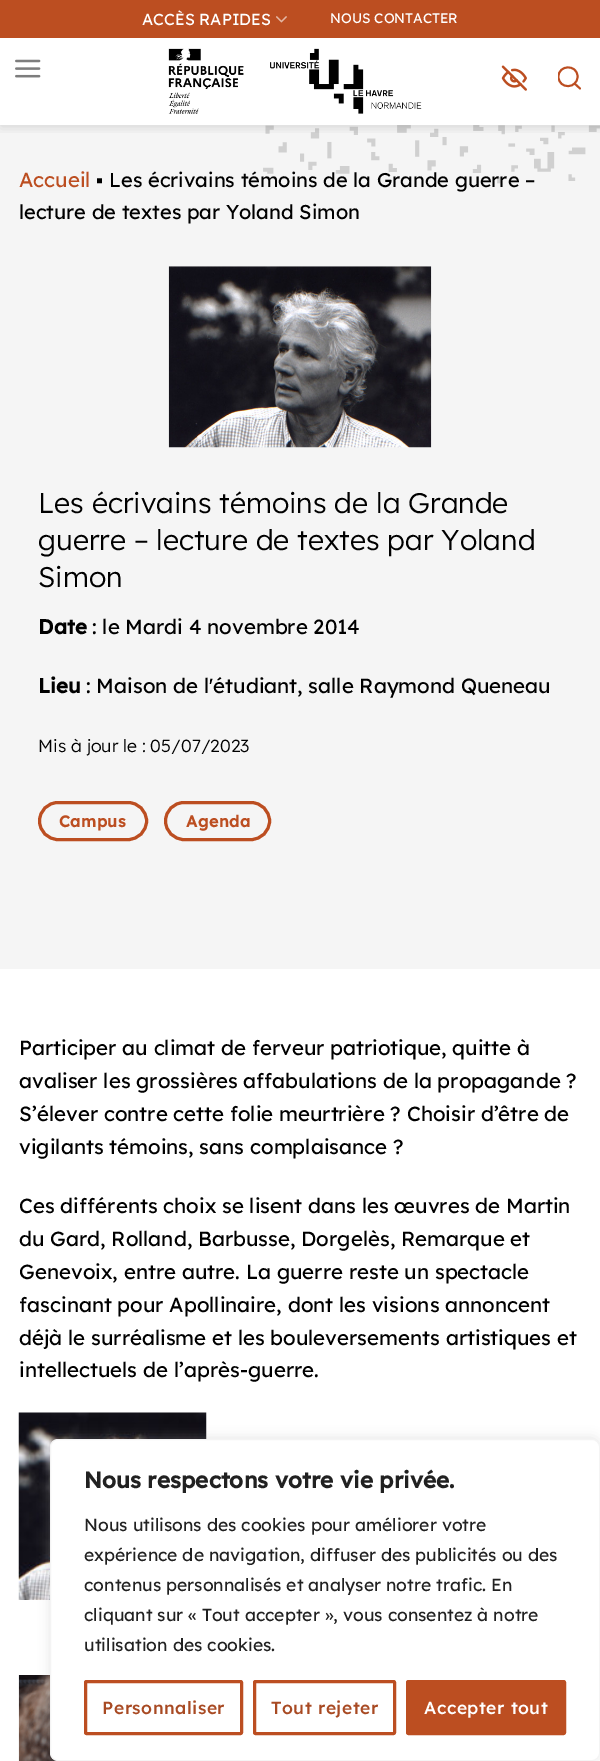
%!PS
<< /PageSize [600 1761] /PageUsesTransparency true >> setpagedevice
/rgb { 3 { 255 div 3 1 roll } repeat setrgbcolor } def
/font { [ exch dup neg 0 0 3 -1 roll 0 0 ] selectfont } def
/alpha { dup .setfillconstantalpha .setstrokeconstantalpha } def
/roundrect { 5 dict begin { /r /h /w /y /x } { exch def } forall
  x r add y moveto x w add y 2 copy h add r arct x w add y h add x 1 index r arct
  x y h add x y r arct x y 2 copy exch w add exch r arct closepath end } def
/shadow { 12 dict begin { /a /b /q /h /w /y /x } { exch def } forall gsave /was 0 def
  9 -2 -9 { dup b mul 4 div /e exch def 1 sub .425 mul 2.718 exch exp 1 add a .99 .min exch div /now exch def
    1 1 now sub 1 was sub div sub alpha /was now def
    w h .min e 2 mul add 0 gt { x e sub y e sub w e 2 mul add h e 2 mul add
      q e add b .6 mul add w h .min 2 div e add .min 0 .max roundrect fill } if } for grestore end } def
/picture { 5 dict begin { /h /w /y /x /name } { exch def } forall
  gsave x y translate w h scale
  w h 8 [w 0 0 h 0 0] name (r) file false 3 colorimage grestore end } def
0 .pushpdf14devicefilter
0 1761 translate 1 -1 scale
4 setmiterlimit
255 255 255 rgb
0 0 600 1761 rectfill
245 245 245 rgb
0 125 600 844 rectfill
(img/5.rgb) 263 125 337 59 picture
gsave
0 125 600 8 rectclip
0 0 0 rgb
1 1 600 125 0 6 0.15 shadow
grestore
188 78 33 rgb
0 0 600 38 rectfill
(img/1.rgb) 276 16 11 7 picture
(img/2.rgb) 15 59 26 19 picture
(img/3.rgb) 168 48 254 66 picture
(img/4.rgb) 501 65 26 26 picture
gsave
558 66 23 24 rectclip
1.9 setlinewidth
1 setlinecap
1 setlinejoin
577.5 76.5 moveto 577.5 89 559 89.5 558.5 77 curveto 558 64.5 577.5 64 577.5 76.5 curveto closepath stroke
grestore
1.9 setlinewidth
1 setlinecap
1 setlinejoin
580 88.5 moveto 574.5 83.5 lineto stroke
(img/6.rgb) 168 266 264 182 picture
3 setlinewidth
0 setlinecap
0 setlinejoin
39.5 802.5 107 37 18.5 roundrect stroke
165.5 802.5 104 37 18.5 roundrect stroke
(img/7.rgb) 18 1412 189 188 picture
(img/8.rgb) 18 1675 40 86 picture
172 171 171 rgb
50 1438 550 322 8 6 0.3 shadow
255 255 255 rgb
50.5 1439.5 549 321 7.5 roundrect gsave fill grestore
244 244 244 rgb
1 setlinewidth
stroke
188 78 33 rgb
3 setlinewidth
85.5 1681.5 156 52 1 roundrect stroke
254.5 1681.5 140 52 1 roundrect stroke
407.5 1681.5 157 52 1 roundrect gsave fill grestore
stroke
/LexendDeca-Regular 16 font
255 255 255 rgb
142 25 moveto (ACCÈS RAPIDES) show
/LexendDeca-Regular 13.75 font
330 23 moveto (NOUS CONTACTER) show
/LexendDeca-Regular 20.5 font
188 78 33 rgb
19 187 moveto (Accueil) show
/LiberationSans-Regular 20 font
0 0 0 rgb
96 187 moveto (▪) show
/LexendDeca-Regular 20 font
109 187 moveto (Les écrivains témoins de la Grande guerre –) show
19 219 moveto (lecture de textes par Yoland Simon) show
/LexendDeca-Light 28.5 font
[
  [(Les écrivains témoins de la Grande) 38 513]
  [(guerre – lecture de textes par Yoland) 38 550]
  [(Simon) 38 587]
] { aload pop moveto show } forall
/LexendDeca-Bold 20.5 font
38 634 moveto (Date) show
/LexendDeca-Regular 20.5 font
92 634 moveto (: le Mardi 4 novembre 2014) show
/LexendDeca-Bold 20.5 font
38 693 moveto (Lieu) show
/LexendDeca-Regular 20.5 font
86 693 moveto (: Maison de l'étudiant, salle Raymond Queneau) show
/LexendDeca-Light 17.5 font
38 752 moveto (Mis à jour le : 05/07/2023) show
/LexendDeca-Bold 16 font
188 78 33 rgb
59 827 moveto 0.5 0 (Campus) ashow
186 827 moveto 0.5 0 (Agenda) ashow
/LexendDeca-Regular 20.5 font
0 0 0 rgb
[
  [(Participer au climat de ferveur patriotique, quitte à) 19 1055]
  [(avaliser les grossières affabulations de la propagande ?) 19 1088]
  [(S’élever contre cette folie meurtrière ? Choisir d’être de) 19 1121]
  [(vigilants témoins, sans complaisance ?) 19 1154]
  [(Ces différents choix se lisent dans les œuvres de Martin) 19 1213]
  [(du Gard, Rolland, Barbusse, Dorgelès, Remarque et) 19 1246]
  [(Genevoix, entre autre. La guerre reste un spectacle) 19 1279]
  [(fascinant pour Apollinaire, dont les visions annoncent) 19 1312]
  [(déjà le surréalisme et les bouleversements artistiques et) 19 1345]
  [(intellectuels de l’après-guerre.) 19 1377]
] { aload pop moveto show } forall
/LexendDeca-Bold 22.5 font
33 33 33 rgb
84 1488 moveto (Nous respectons votre vie privée.) show
/LexendDeca-Regular 17.5 font
[
  [(Nous utilisons des cookies pour améliorer votre) 84 1531]
  [(expérience de navigation, diffuser des publicités ou des) 84 1561]
  [(contenus personnalisés et analyser notre trafic. En) 84 1591]
  [(cliquant sur « Tout accepter », vous consentez à notre) 84 1621]
  [(utilisation des cookies.) 84 1651]
] { aload pop moveto show } forall
/LexendDeca-Medium 17.5 font
168 74 35 rgb
102 1714 moveto 0.5 0 (Personnaliser) ashow
271 1714 moveto 0.5 0 (Tout rejeter) ashow
255 255 255 rgb
424 1714 moveto 0.5 0 (Accepter tout) ashow
.poppdf14devicefilter showpage
